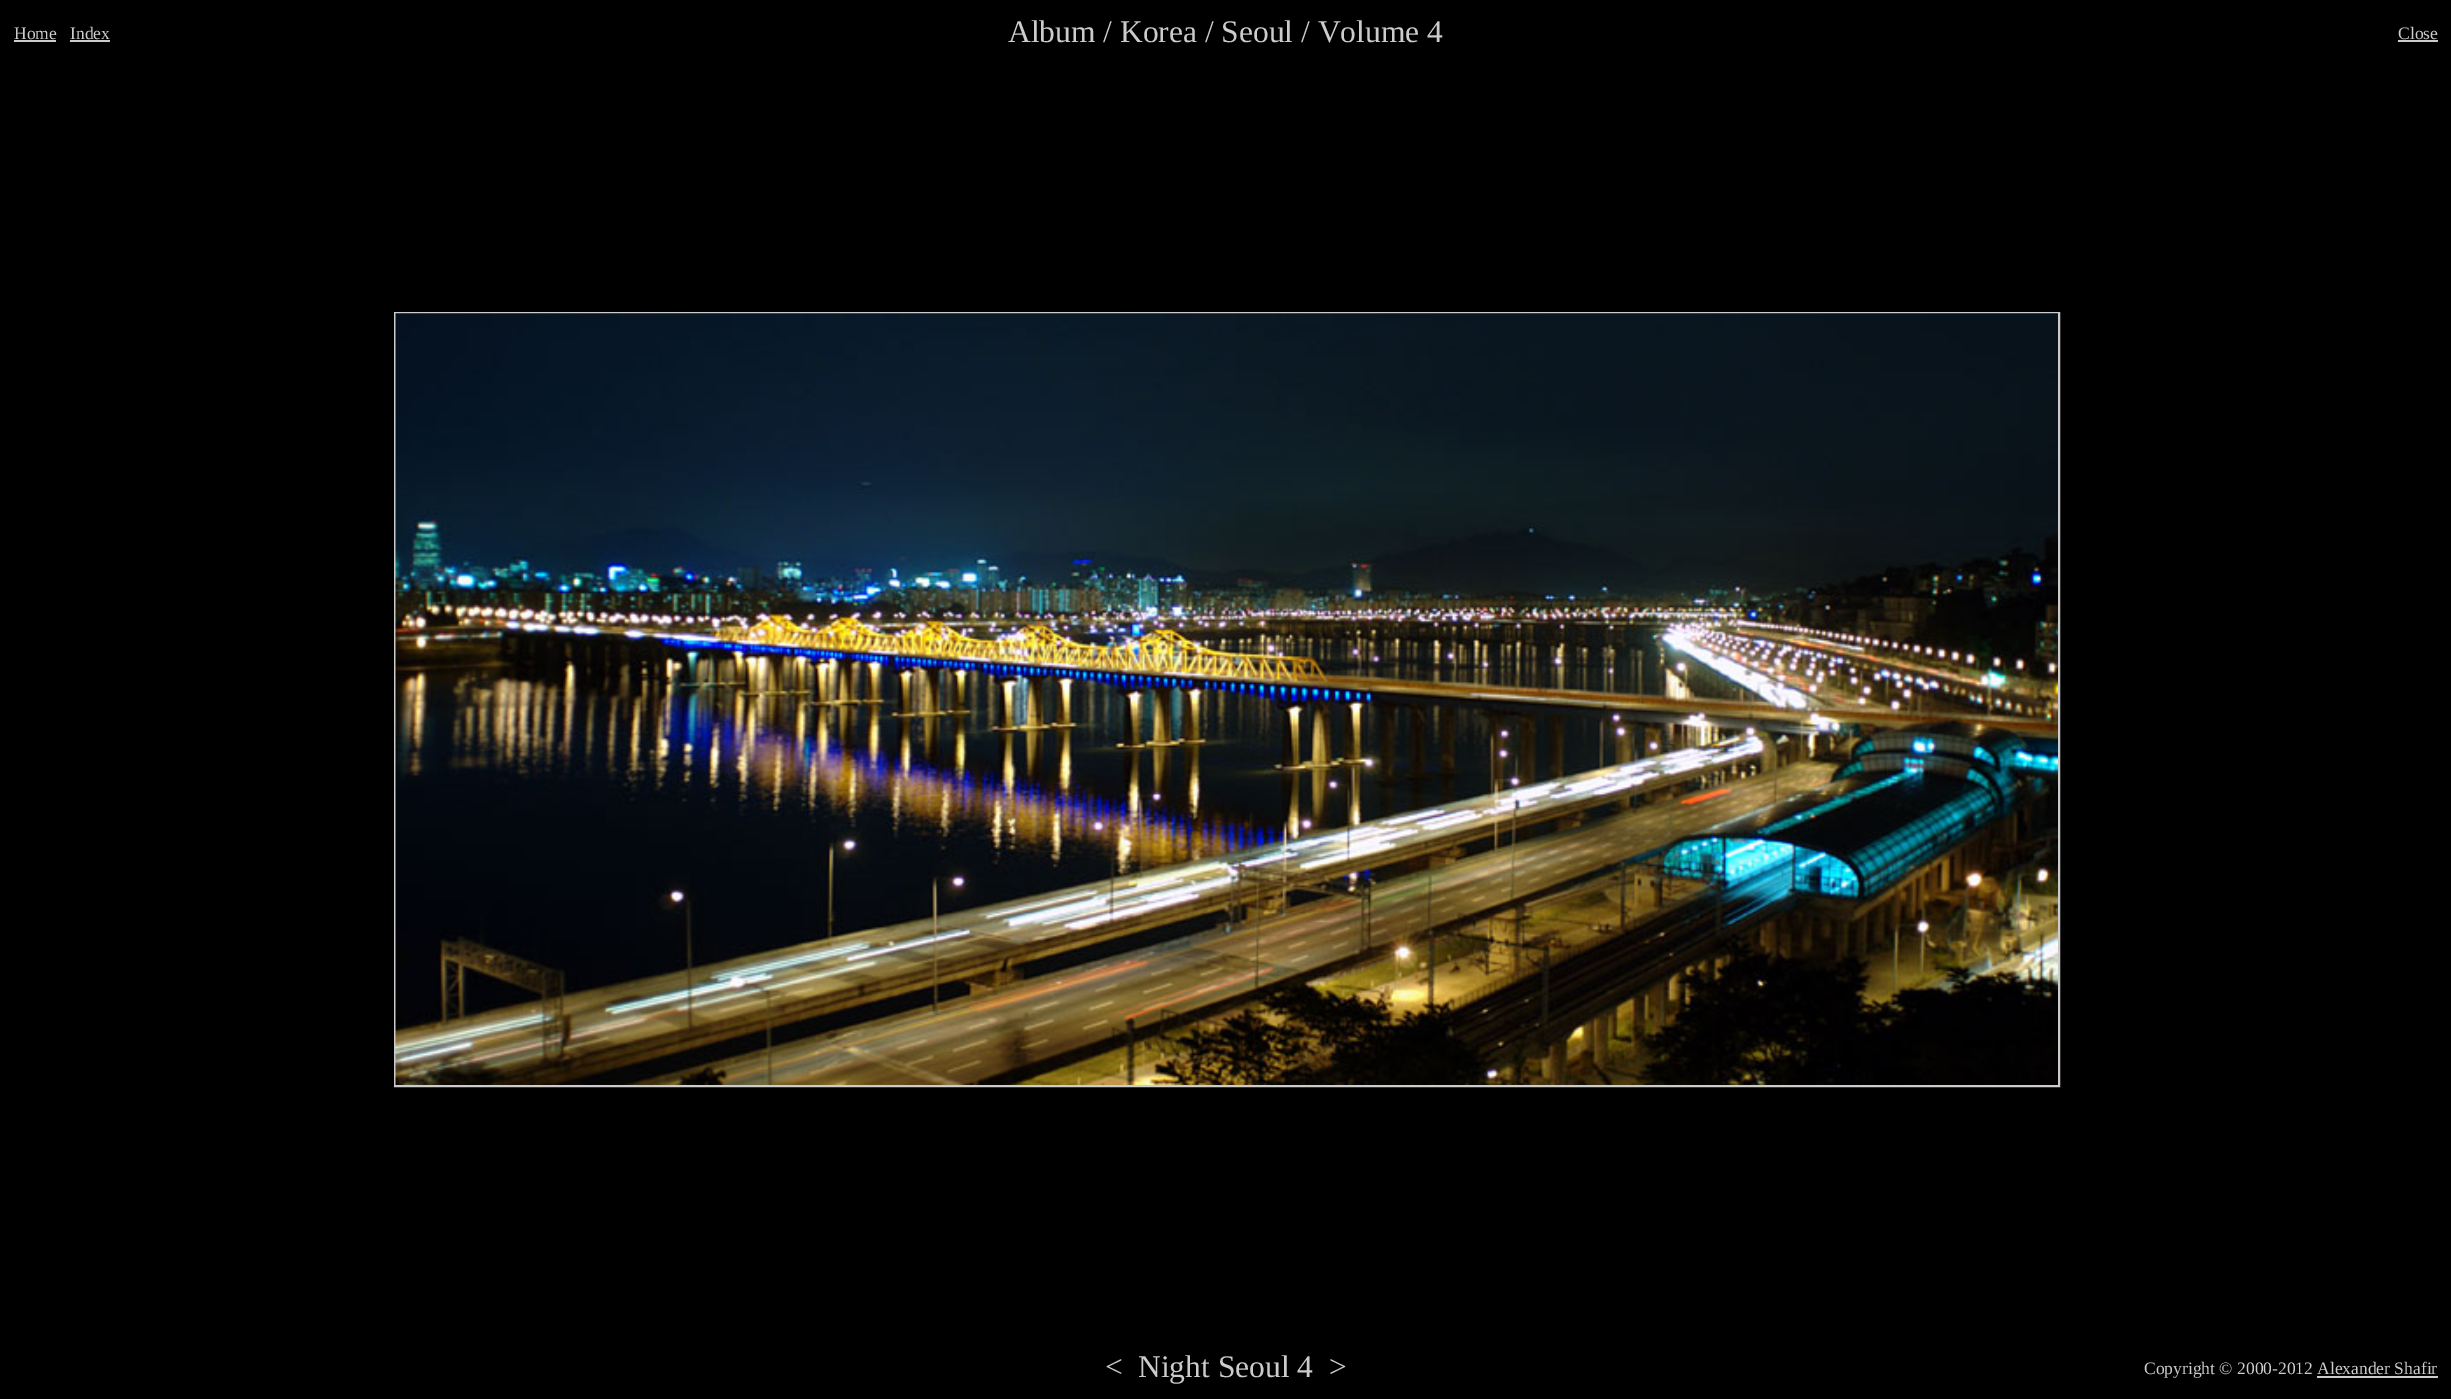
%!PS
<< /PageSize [2451 1399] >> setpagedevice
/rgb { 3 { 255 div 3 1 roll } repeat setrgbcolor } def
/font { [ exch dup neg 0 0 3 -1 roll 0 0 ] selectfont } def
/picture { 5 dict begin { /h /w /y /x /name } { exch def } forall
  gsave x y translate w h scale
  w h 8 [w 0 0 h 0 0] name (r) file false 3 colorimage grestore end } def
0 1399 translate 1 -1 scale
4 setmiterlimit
0 0 0 rgb
0 0 2451 1399 rectfill
[
  [14 40 42 2 204 204 204]
  [70 40 40 2 204 204 204]
  [2398 40 40 2 204 204 204]
] { aload pop rgb rectfill } forall
2 setlinewidth
395 313 1664 773 rectstroke
(img/1.rgb) 395 313 1663 772 picture
2317 1376 121 2 rectfill
/LiberationSerif-Regular 17.5 font
14 39 moveto (Home) show
70 39 moveto (Index) show
/LiberationSerif-Regular 31.5 font
1008 42 moveto (Album / Korea / Seoul / Volume 4) show
/LiberationSerif-Regular 17.5 font
2398 39 moveto (Close) show
/LiberationSerif-Regular 31.5 font
[
  [(<) 1105 1377]
  [(Night Seoul 4) 1138 1377]
  [(>) 1329 1377]
] { aload pop moveto show } forall
/LiberationSerif-Regular 17.5 font
2144 1374 moveto (Copyright © 2000-2012 Alexander Shafir) show
showpage
